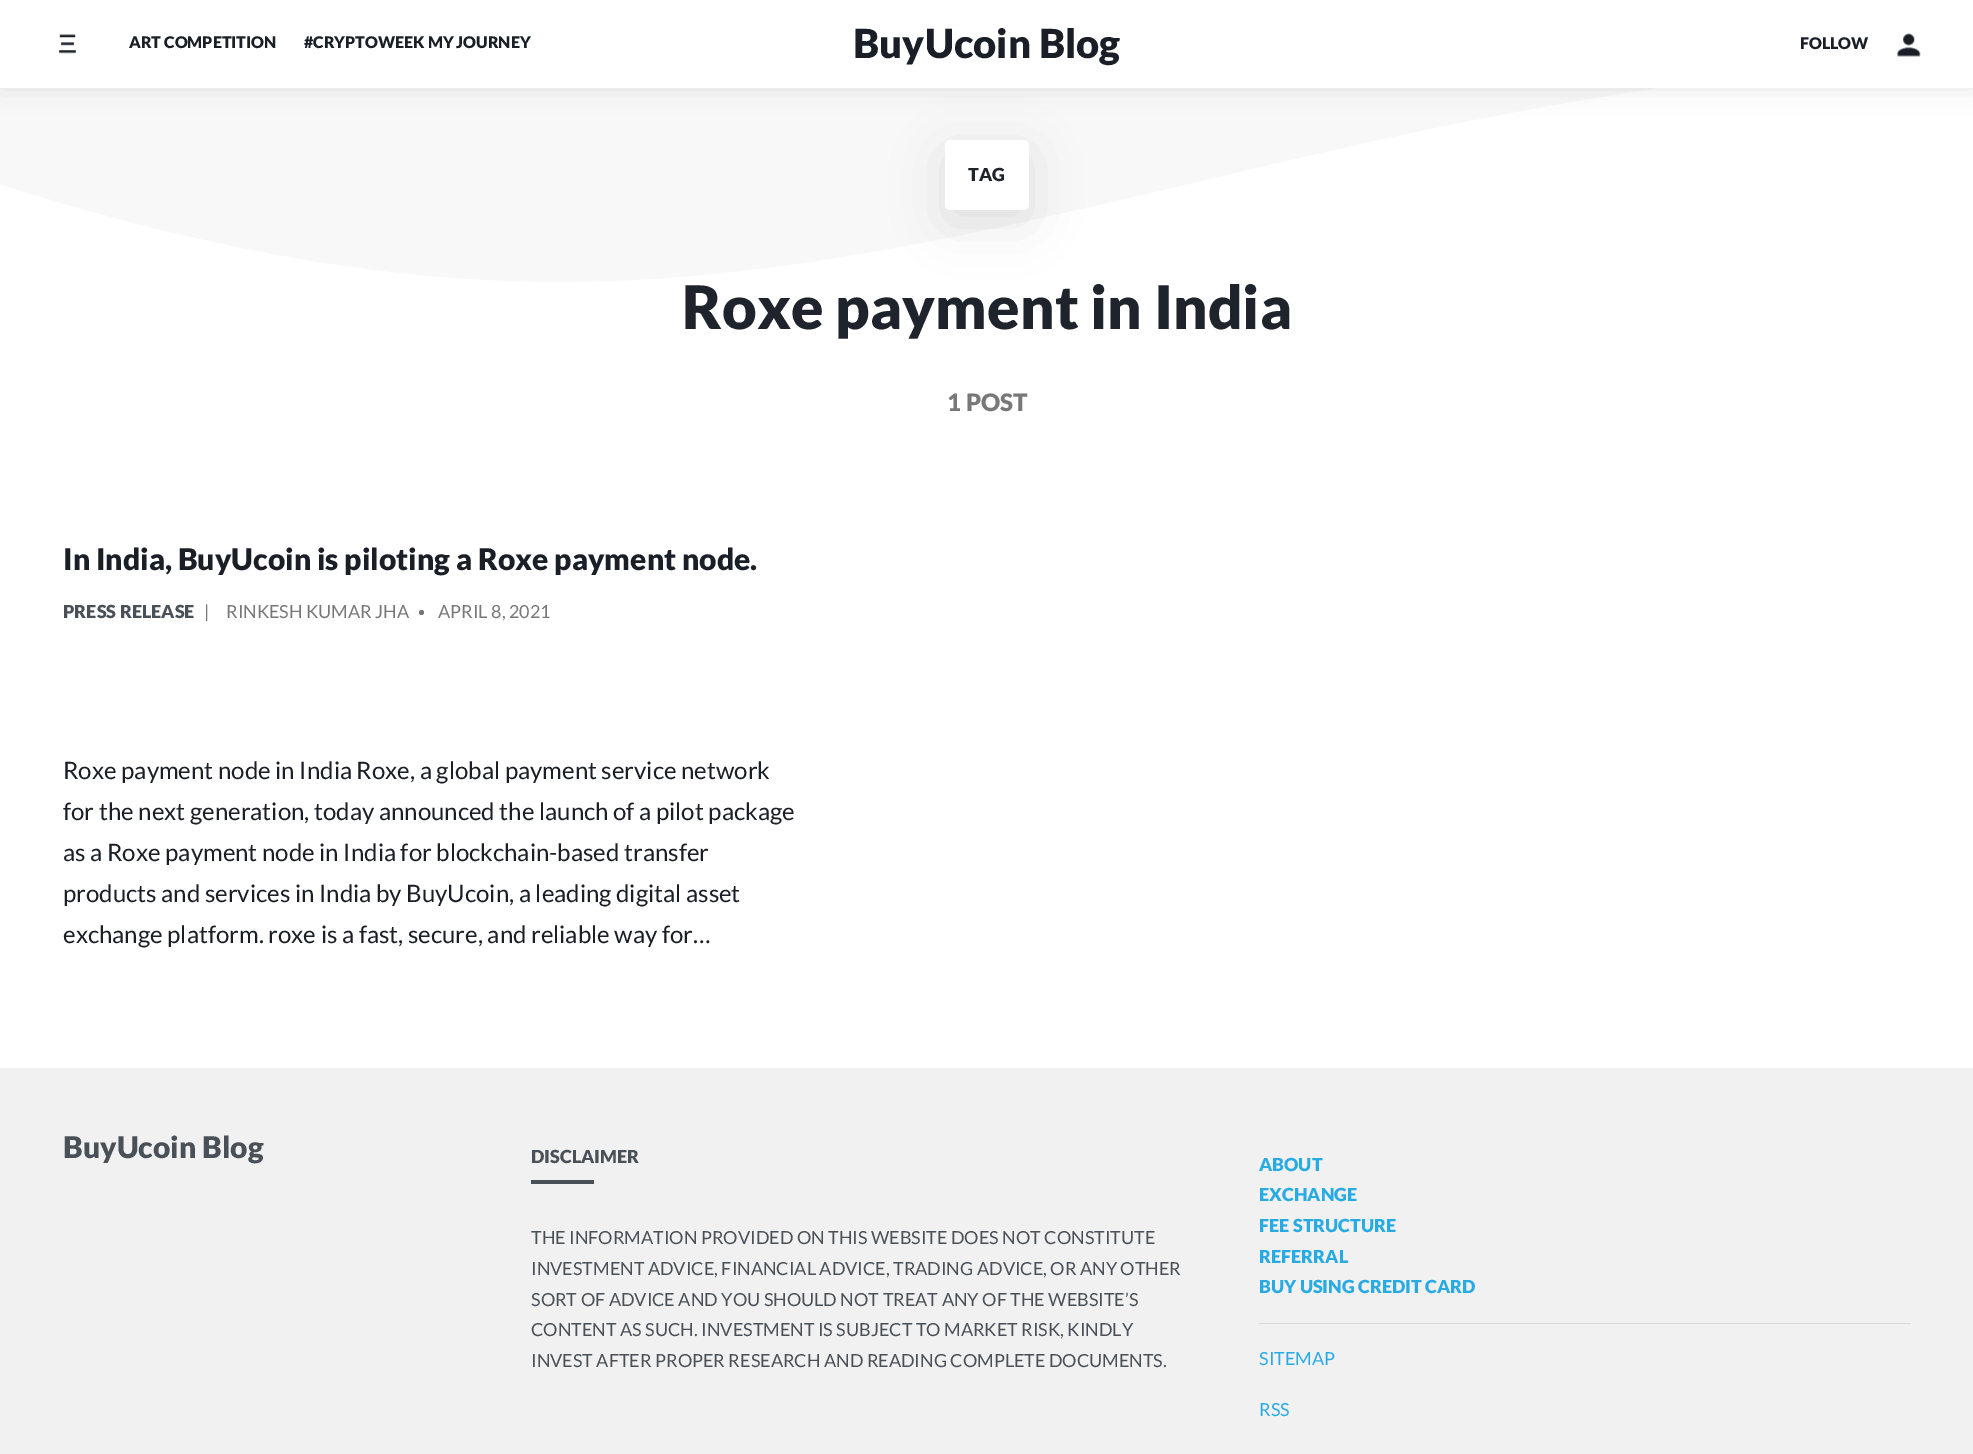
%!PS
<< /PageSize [1973 1454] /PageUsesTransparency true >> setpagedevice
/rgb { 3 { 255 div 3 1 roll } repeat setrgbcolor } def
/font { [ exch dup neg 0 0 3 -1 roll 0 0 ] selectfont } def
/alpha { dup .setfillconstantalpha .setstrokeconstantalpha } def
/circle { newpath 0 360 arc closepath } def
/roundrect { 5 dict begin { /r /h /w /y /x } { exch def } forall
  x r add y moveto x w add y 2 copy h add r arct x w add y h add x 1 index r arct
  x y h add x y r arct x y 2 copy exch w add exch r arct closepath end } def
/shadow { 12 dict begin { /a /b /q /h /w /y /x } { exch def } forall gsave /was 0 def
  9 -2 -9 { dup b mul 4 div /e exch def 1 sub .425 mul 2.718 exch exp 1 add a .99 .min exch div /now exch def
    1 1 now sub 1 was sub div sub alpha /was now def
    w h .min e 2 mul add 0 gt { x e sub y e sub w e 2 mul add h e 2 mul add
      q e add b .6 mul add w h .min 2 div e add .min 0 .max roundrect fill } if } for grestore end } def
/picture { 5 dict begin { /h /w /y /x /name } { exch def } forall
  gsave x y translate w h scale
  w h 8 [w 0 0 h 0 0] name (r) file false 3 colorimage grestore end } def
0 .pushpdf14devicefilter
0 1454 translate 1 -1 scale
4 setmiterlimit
255 255 255 rgb
0 0 1973 1454 rectfill
248 248 248 rgb
-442 17 moveto -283 80 lineto -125 144 193 271 511 281 curveto 829 293 1146 185 1464 122 curveto 1782 58 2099 38 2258 27 curveto 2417 17 lineto 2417 -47 lineto -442 -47 lineto closepath fill
0 0 0 rgb
0 0 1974 88 0 12.5 0.1 shadow
945 153 84 70 5 25 0.1 shadow
255 255 255 rgb
0 0 1973 88 rectfill
(img/1.rgb) 59 34 17 20 picture
(img/2.rgb) 1897 33 24 24 picture
945 140 84 70 5 roundrect fill
117 117 117 rgb
421.5 612.5 2.5 circle fill
[
  [0 1068 1973 386 241 241 241]
  [531 1180 63 4 73 80 87]
  [1259 1323 652 1 217 217 217]
] { aload pop rgb rectfill } forall
/Lato-Black 16 font
25 30 39 rgb
129 48 moveto (ART COMPETITION) show
304 48 moveto (#CRYPTOWEEK MY JOURNEY) show
/Lato-Black 40 font
853 58 moveto (BuyUcoin Blog) show
/Lato-Black 16 font
1800 49 moveto (FOLLOW) show
/Lato-Black 18 font
31 35 44 rgb
968 181 moveto (TAG) show
/Lato-Black 60 font
682 329 moveto (Roxe payment in India) show
/Lato-Black 24 font
120 120 120 rgb
947 411 moveto (1 POST) show
/Lato-Black 30 font
25 30 39 rgb
63 570 moveto (In India, BuyUcoin is piloting a Roxe payment node.) show
/Lato-Black 18 font
73 80 87 rgb
63 618 moveto (PRESS RELEASE) show
/Lato-Regular 18 font
120 120 120 rgb
[
  [(|) 204 618]
  [(RINKESH KUMAR JHA) 226 618]
  [(APRIL 8, 2021) 438 618]
] { aload pop moveto show } forall
/Lato-Regular 24 font
25 30 39 rgb
[
  [(Roxe payment node in India Roxe, a global payment service network) 63 779]
  [(for the next generation, today announced the launch of a pilot package) 63 820]
  [(as a Roxe payment node in India for blockchain-based transfer) 63 861]
  [(products and services in India by BuyUcoin, a leading digital asset) 63 902]
  [(exchange platform. roxe is a fast, secure, and reliable way for…) 63 943]
] { aload pop moveto show } forall
/Lato-Black 30 font
73 80 87 rgb
63 1158 moveto (BuyUcoin Blog) show
/Lato-Black 18 font
531 1163 moveto (DISCLAIMER) show
/Lato-Regular 18 font
[
  [(THE INFORMATION PROVIDED ON THIS WEBSITE DOES NOT CONSTITUTE) 531 1244]
  [(INVESTMENT ADVICE, FINANCIAL ADVICE, TRADING ADVICE, OR ANY OTHER) 531 1275]
  [(SORT OF ADVICE AND YOU SHOULD NOT TREAT ANY OF THE WEBSITE’S) 531 1306]
  [(CONTENT AS SUCH. INVESTMENT IS SUBJECT TO MARKET RISK, KINDLY) 531 1336]
  [(INVEST AFTER PROPER RESEARCH AND READING COMPLETE DOCUMENTS.) 531 1367]
] { aload pop moveto show } forall
/Lato-Black 18 font
40 171 227 rgb
[
  [(ABOUT) 1259 1171]
  [(EXCHANGE) 1259 1201]
  [(FEE STRUCTURE) 1259 1232]
  [(REFERRAL) 1259 1263]
  [(BUY USING CREDIT CARD) 1259 1293]
] { aload pop moveto show } forall
/Lato-Regular 18 font
1259 1365 moveto (SITEMAP) show
1259 1416 moveto (RSS) show
.poppdf14devicefilter showpage
